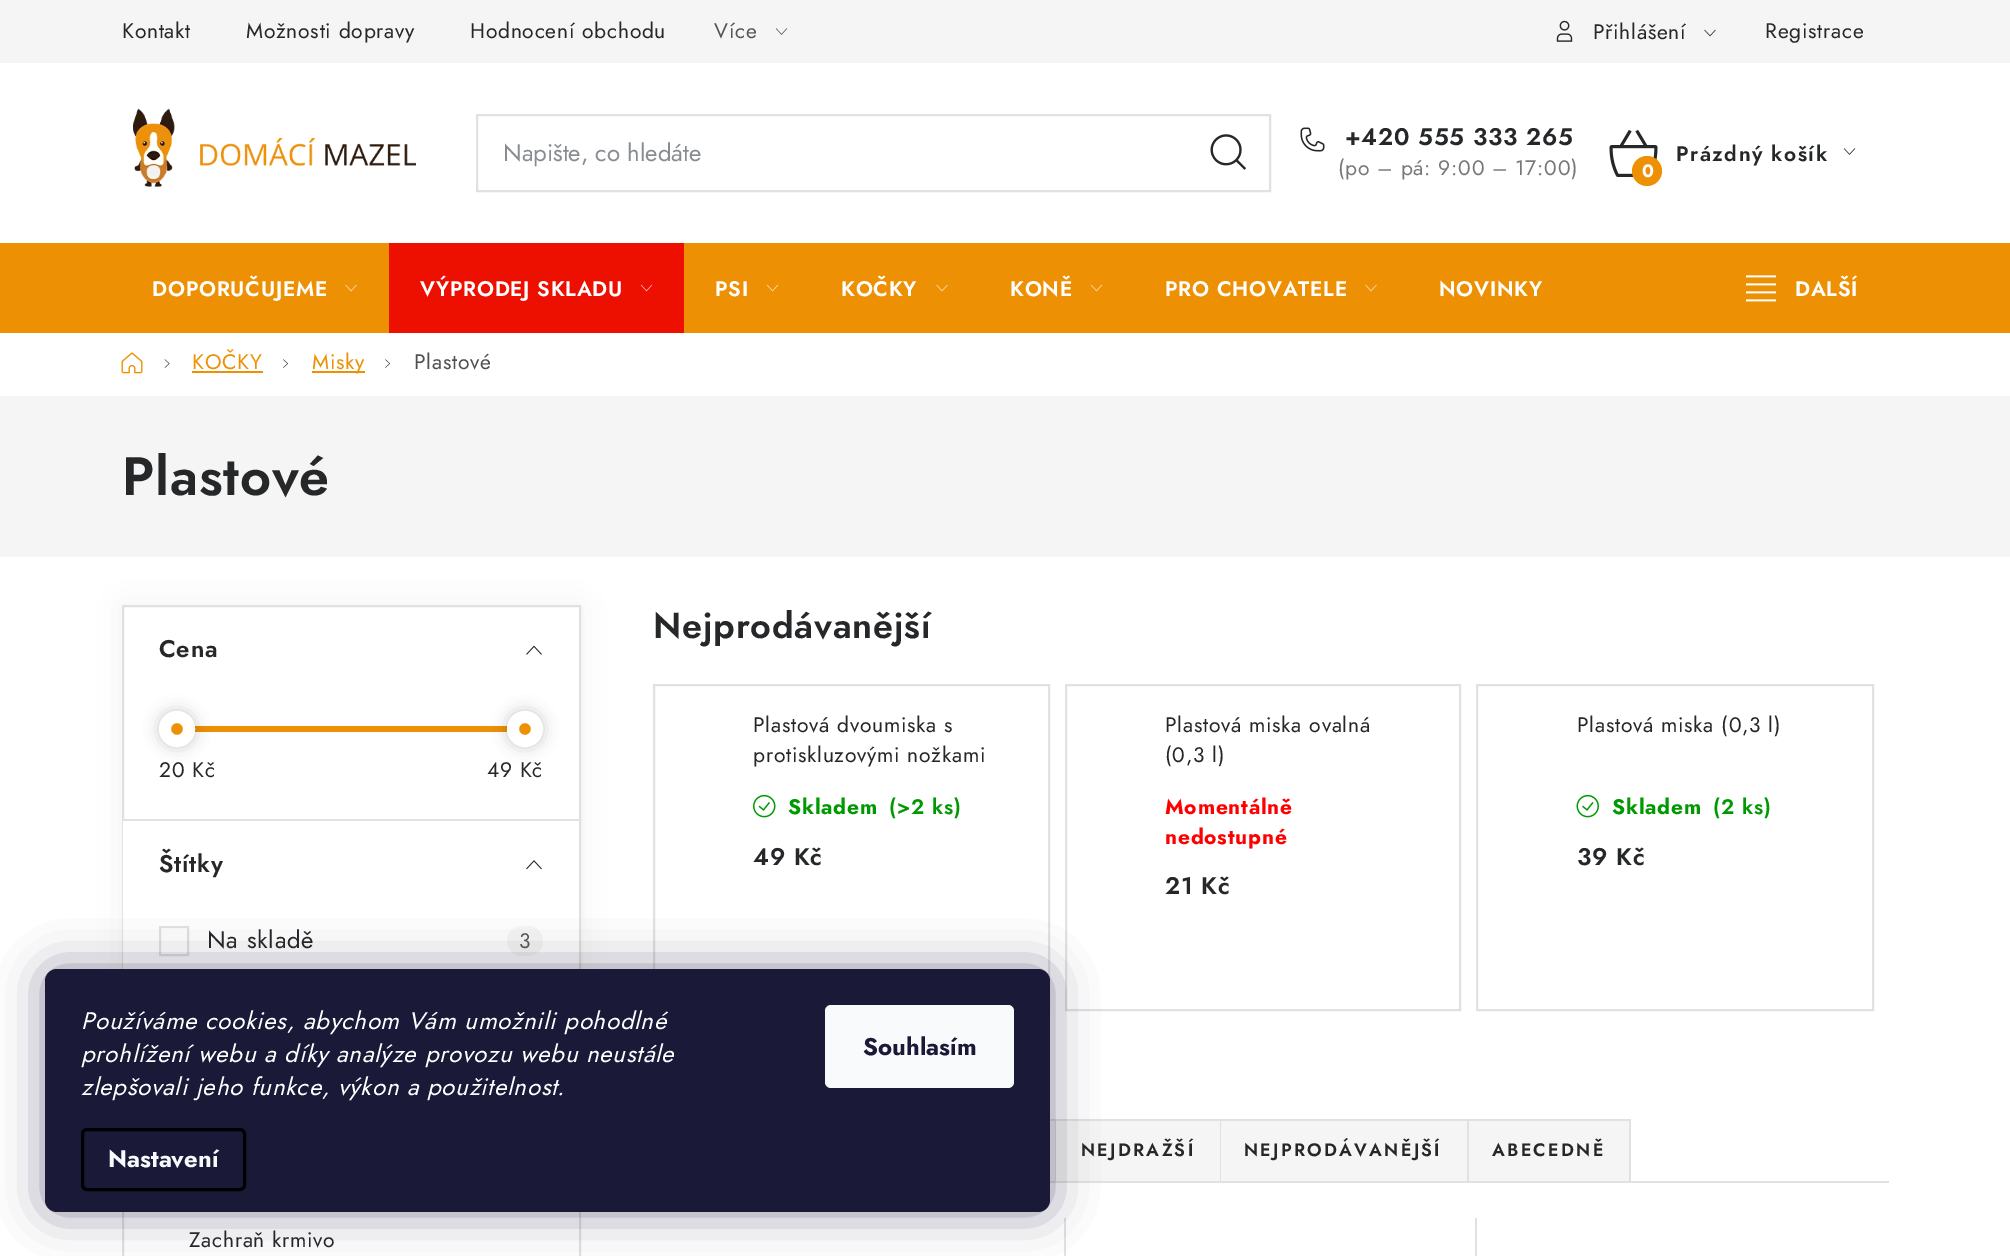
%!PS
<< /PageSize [2010 1256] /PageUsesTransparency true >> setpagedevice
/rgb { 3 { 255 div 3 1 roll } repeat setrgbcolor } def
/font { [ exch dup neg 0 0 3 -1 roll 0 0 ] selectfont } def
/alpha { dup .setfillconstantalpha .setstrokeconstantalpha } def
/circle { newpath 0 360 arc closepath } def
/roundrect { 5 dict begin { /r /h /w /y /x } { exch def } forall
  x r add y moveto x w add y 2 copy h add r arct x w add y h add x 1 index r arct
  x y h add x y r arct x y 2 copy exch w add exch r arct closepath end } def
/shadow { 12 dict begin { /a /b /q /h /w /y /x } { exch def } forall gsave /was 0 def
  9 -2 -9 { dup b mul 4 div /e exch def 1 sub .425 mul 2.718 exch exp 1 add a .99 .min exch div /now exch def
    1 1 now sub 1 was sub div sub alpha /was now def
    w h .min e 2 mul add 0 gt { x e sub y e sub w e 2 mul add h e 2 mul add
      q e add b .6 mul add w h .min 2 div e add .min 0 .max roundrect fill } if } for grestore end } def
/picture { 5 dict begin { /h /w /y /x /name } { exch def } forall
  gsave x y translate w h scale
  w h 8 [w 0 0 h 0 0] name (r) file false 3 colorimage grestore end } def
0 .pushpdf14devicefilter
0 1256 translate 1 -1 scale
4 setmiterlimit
255 255 255 rgb
0 0 2010 1256 rectfill
245 245 245 rgb
0 0 2010 63 rectfill
(img/1.rgb) 775 28 13 7 picture
(img/2.rgb) 1556 20 17 22 picture
(img/3.rgb) 1704 29 12 8 picture
(img/4.rgb) 133 108 283 79 picture
225 225 226 rgb
2 setlinewidth
477 115 793 76 rectstroke
(img/5.rgb) 1210 134 37 36 picture
(img/6.rgb) 1300 127 25 25 picture
(img/7.rgb) 1609 129 49 48 picture
237 144 4 rgb
1647 171 15 circle fill
(img/8.rgb) 1843 148 13 7 picture
0 243 2010 90 rectfill
(img/9.rgb) 345 284 12 8 picture
237 16 0 rgb
389 243 295 90 rectfill
(img/10.rgb) 640 284 13 8 picture
(img/11.rgb) 766 284 13 8 picture
(img/9.rgb) 936 284 12 8 picture
(img/11.rgb) 1090 284 13 8 picture
(img/9.rgb) 1365 284 12 8 picture
(img/12.rgb) 1746 275 30 27 picture
(img/13.rgb) 121 352 22 22 picture
(img/14.rgb) 164 359 6 9 picture
237 144 4 rgb
192 371 71 2 rectfill
(img/15.rgb) 283 359 5 9 picture
312 371 53 2 rectfill
(img/15.rgb) 385 359 5 9 picture
245 245 245 rgb
0 396 2010 161 rectfill
0 0 0 rgb
122 605 459 390 0 15 0.05 shadow
255 255 255 rgb
124 607 455 212 rectfill
225 225 226 rgb
123 606 457 388 rectstroke
123 819 456 2 rectfill
(img/16.rgb) 526 645 16 10 picture
237 144 4 rgb
194 726 314 6 rectfill
0 0 0 rgb
159 711 36 36 18 7.5 0.2 shadow
237 144 4 rgb
177 729 12 circle gsave fill grestore
255 255 255 rgb
12 setlinewidth
stroke
0 0 0 rgb
507 711 36 36 18 7.5 0.2 shadow
237 144 4 rgb
525 729 12 circle gsave fill grestore
255 255 255 rgb
stroke
123 821 456 148 rectfill
(img/17.rgb) 526 860 16 10 picture
225 225 226 rgb
2 setlinewidth
160 927 28 28 rectstroke
245 245 245 rgb
507 926 36 30 15 roundrect fill
225 225 226 rgb
123 1044 457 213 rectstroke
654 685 395 325 rectstroke
(img/18.rgb) 753 794 23 24 picture
1066 685 394 325 rectstroke
1477 685 396 325 rectstroke
(img/19.rgb) 1576 794 23 24 picture
[
  [1631 1181 258 2 225 225 226]
  [1050 1121 5 60 245 245 245]
  [1050 1119 581 2 225 225 226]
  [1055 1119 1 63 225 225 226]
  [1050 1181 6 2 225 225 226]
  [1056 1121 164 60 245 245 245]
  [1220 1119 1 63 225 225 226]
  [1056 1181 165 2 225 225 226]
  [1221 1121 246 60 245 245 245]
  [1467 1119 2 63 225 225 226]
  [1221 1181 248 2 225 225 226]
  [1469 1121 160 60 245 245 245]
  [1629 1119 2 63 225 225 226]
  [1469 1181 162 2 225 225 226]
  [1064 1218 2 38 225 225 226]
  [1475 1218 2 38 225 225 226]
] { aload pop rgb rectfill } forall
27 25 57 rgb
45 969 1005 243 12 22.5 0.5 shadow
26 25 55 rgb
45 969 1005 243 12 roundrect fill
0 0 0 rgb
3 setlinewidth
82.5 1129.5 162 60 4.5 roundrect stroke
248 250 251 rgb
825 1005 189 83 6 roundrect fill
/Jost-Regular 21 font
37 39 41 rgb
122 38 moveto 0.75 0 (Kontakt) ashow
246 38 moveto 0.75 0 (Možnosti dopravy) ashow
470 38 moveto 0.75 0 (Hodnocení obchodu) ashow
85 86 88 rgb
714 38 moveto 0.75 0 (Více) ashow
37 39 41 rgb
1593 39 moveto 0.75 0 (Přihlášení) ashow
1765 38 moveto 0.75 0 (Registrace) ashow
/Jost-Regular 24 font
136 140 146 rgb
503 161 moveto (Napište, co hledáte) show
/Jost-SemiBold 24 font
37 39 41 rgb
1345 145 moveto 0.75 0 (+420 555 333 265) ashow
/Jost-Regular 21 font
119 120 121 rgb
1338 175 moveto 0.75 0 (\(po – pá: 9:00 – 17:00\)) ashow
/Jost-SemiBold 21 font
37 39 41 rgb
1676 161 moveto 1.5 0 (Prázdný košík) ashow
/Jost-Bold 18 font
255 255 255 rgb
1642 177 moveto (0) show
/Jost-SemiBold 21 font
152 296 moveto 0.75 0 (DOPORUČUJEME) ashow
420 296 moveto 0.75 0 (VÝPRODEJ SKLADU) ashow
715 296 moveto 0.75 0 (PSI) ashow
841 296 moveto 0.75 0 (KOČKY) ashow
1010 296 moveto 0.75 0 (KONĚ) ashow
1165 296 moveto 0.75 0 (PRO CHOVATELE) ashow
1439 296 moveto 0.75 0 (NOVINKY) ashow
1795 296 moveto 0.75 0 (DALŠÍ) ashow
/Jost-Regular 21 font
237 144 4 rgb
192 369 moveto 0.75 0 (KOČKY) ashow
312 369 moveto 0.75 0 (Misky) ashow
79 79 79 rgb
414 369 moveto 0.75 0 (Plastové) ashow
/Jost-SemiBold 54 font
37 39 41 rgb
122 495 moveto 0.75 0 (Plastové) ashow
/Jost-SemiBold 24 font
159 657 moveto 0.75 0 (Cena) ashow
/Jost-Regular 21 font
159 777 moveto 0.75 0 (20 Kč) ashow
487 777 moveto 0.75 0 (49 Kč) ashow
/Jost-SemiBold 24 font
159 872 moveto 0.75 0 (Štítky) ashow
/Jost-Regular 24 font
207 948 moveto 0.75 0 (Na skladě) ashow
/Jost-Regular 21 font
85 86 88 rgb
519 948 moveto 0.75 0 (3) ashow
37 39 41 rgb
189 1247 moveto 0.75 0 (Zachraň krmivo) ashow
/Jost-SemiBold 36 font
653 638 moveto 0.75 0 (Nejprodávanější) ashow
/Jost-Regular 21 font
753 732 moveto 0.75 0 (Plastová dvoumiska s) ashow
753 762 moveto 0.75 0 (protiskluzovými nožkami) ashow
/Jost-Bold 21 font
0 153 1 rgb
788 814 moveto 0.75 0 (Skladem) ashow
/Jost-SemiBold 21 font
889 814 moveto 0.75 0 (\(>2 ks\)) ashow
/Jost-SemiBold 24 font
37 39 41 rgb
753 865 moveto 0.75 0 (49 Kč) ashow
/Jost-Regular 21 font
1165 732 moveto 0.75 0 (Plastová miska ovalná) ashow
1165 762 moveto 0.75 0 (\(0,3 l\)) ashow
/Jost-Bold 21 font
254 0 0 rgb
1165 814 moveto 0.75 0 (Momentálně) ashow
1165 844 moveto 0.75 0 (nedostupné) ashow
/Jost-SemiBold 24 font
37 39 41 rgb
1165 894 moveto 0.75 0 (21 Kč) ashow
/Jost-Regular 21 font
1577 732 moveto 0.75 0 (Plastová miska \(0,3 l\)) ashow
/Jost-Bold 21 font
0 153 1 rgb
1612 814 moveto 0.75 0 (Skladem) ashow
/Jost-SemiBold 21 font
1713 814 moveto 0.75 0 (\(2 ks\)) ashow
/Jost-SemiBold 24 font
37 39 41 rgb
1577 865 moveto 0.75 0 (39 Kč) ashow
/Jost-SemiBold 18 font
1081 1156 moveto 2.25 0 (NEJDRAŽŠÍ) ashow
1244 1156 moveto 2.25 0 (NEJPRODÁVANĚJŠÍ) ashow
1492 1156 moveto 2.25 0 (ABECEDNĚ) ashow
/Jost-Italic 24 font
255 255 255 rgb
81 1029 moveto 0.75 0 (Používáme cookies, abychom Vám umožnili pohodlné) ashow
81 1062 moveto 0.75 0 (prohlížení webu a díky analýze provozu webu neustále) ashow
81 1095 moveto 0.75 0 (zlepšovali jeho funkce, výkon a použitelnost.) ashow
/Jost-Bold 24 font
248 250 251 rgb
108 1167 moveto (Nastavení) show
26 25 55 rgb
863 1055 moveto (Souhlasím) show
.poppdf14devicefilter showpage
